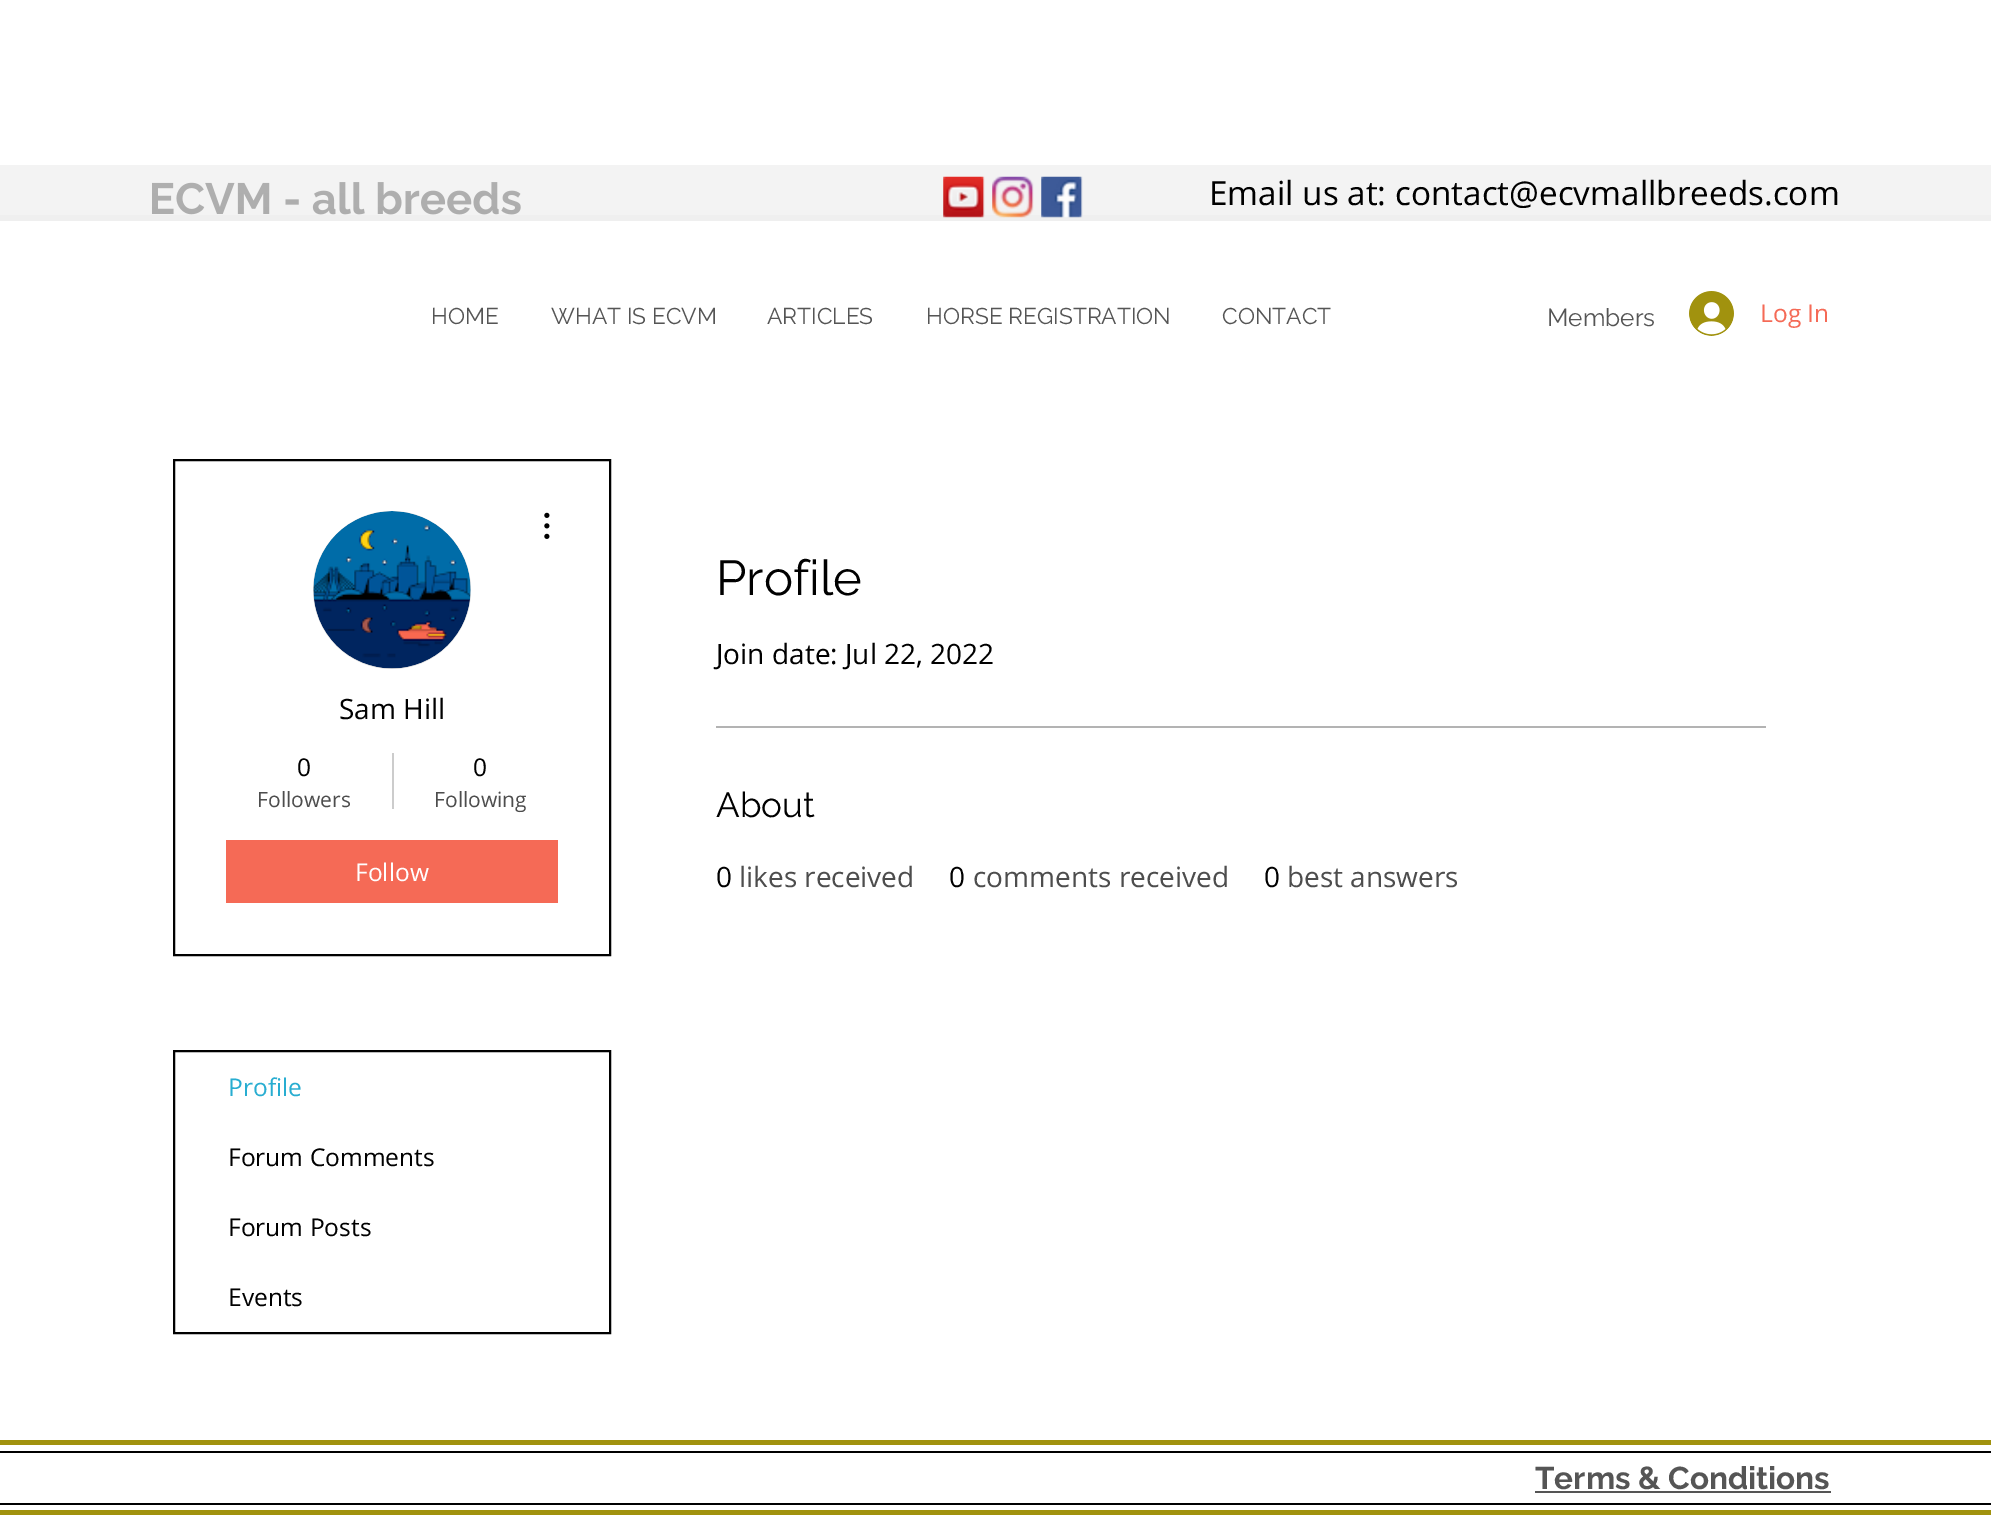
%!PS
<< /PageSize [1991 1521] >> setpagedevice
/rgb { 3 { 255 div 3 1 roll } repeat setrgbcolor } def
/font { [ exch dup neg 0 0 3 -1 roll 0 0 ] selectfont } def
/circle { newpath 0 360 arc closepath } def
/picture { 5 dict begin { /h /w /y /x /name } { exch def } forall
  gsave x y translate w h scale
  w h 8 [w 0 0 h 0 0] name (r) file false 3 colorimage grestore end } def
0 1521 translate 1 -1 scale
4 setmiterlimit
255 255 255 rgb
0 0 1991 1521 rectfill
239 239 239 rgb
0 165 1991 56 rectfill
(img/5.rgb) 1689 291 45 45 picture
0 0 0 rgb
2 setlinewidth
174 460 436 495 rectstroke
216 216 216 rgb
392 590 79 circle fill
(img/6.rgb) 313 511 158 158 picture
(img/7.rgb) 544 512 6 27 picture
204 204 204 rgb
392 753 2 56 rectfill
245 106 86 rgb
226 840 332 63 rectfill
0 0 0 rgb
174 1051 436 282 rectstroke
[
  [716 726 1050 2 179 179 179]
  [0 1440 1991 5 161 146 14]
  [0 1510 1991 5 161 146 14]
  [0 1451 1991 2 0 0 0]
  [0 1503 1991 2 0 0 0]
  [1535 1491 296 2 85 85 85]
] { aload pop rgb rectfill } forall
/Raleway-Bold 43.75 font
149 149 149 rgb
149 214 moveto (ECVM - all breeds) show
(img/1.rgb) 0 165 1991 50 picture
(img/2.rgb) 943 176 42 42 picture
(img/3.rgb) 992 176 42 42 picture
(img/4.rgb) 1041 176 42 42 picture
/OpenSans-Regular 33.25 font
0 0 0 rgb
1209 205 moveto (Email us at: contact@ecvmallbreeds.com) show
/Raleway-Regular 22.75 font
85 85 85 rgb
[
  [(HOME) 431 324]
  [(WHAT IS ECVM) 551 324]
  [(ARTICLES) 767 324]
  [(HORSE REGISTRATION) 926 324]
  [(CONTACT) 1222 324]
] { aload pop moveto show } forall
/Raleway-Regular 24.5 font
1547 326 moveto (Members) show
/OpenSans-Regular 24.5 font
245 106 86 rgb
1760 322 moveto (Log In) show
/OpenSans-Regular 28 font
0 0 0 rgb
339 719 moveto (Sam Hill) show
/OpenSans-Regular 24.5 font
297 776 moveto (0) show
/OpenSans-Regular 21 font
77 77 77 rgb
257 807 moveto (Followers) show
/OpenSans-Regular 24.5 font
0 0 0 rgb
473 776 moveto (0) show
/OpenSans-Regular 21 font
77 77 77 rgb
434 807 moveto (Following) show
/OpenSans-Regular 24.5 font
255 255 255 rgb
355 881 moveto (Follow) show
40 173 209 rgb
228 1096 moveto (Profile) show
0 0 0 rgb
[
  [(Forum Comments) 228 1166]
  [(Forum Posts) 228 1236]
  [(Events) 228 1306]
] { aload pop moveto show } forall
/Raleway-Regular 49 font
716 595 moveto (Profile) show
/OpenSans-Regular 28 font
716 664 moveto (Join date: Jul 22, 2022) show
/Raleway-Regular 35 font
716 817 moveto (About) show
/OpenSans-Regular 28 font
716 887 moveto (0) show
77 77 77 rgb
739 887 moveto (likes received) show
0 0 0 rgb
949 887 moveto (0) show
77 77 77 rgb
973 887 moveto (comments received) show
0 0 0 rgb
1264 887 moveto (0) show
77 77 77 rgb
1287 887 moveto (best answers) show
/Raleway-Bold 31.5 font
85 85 85 rgb
1535 1489 moveto (Terms & Conditions) show
showpage
